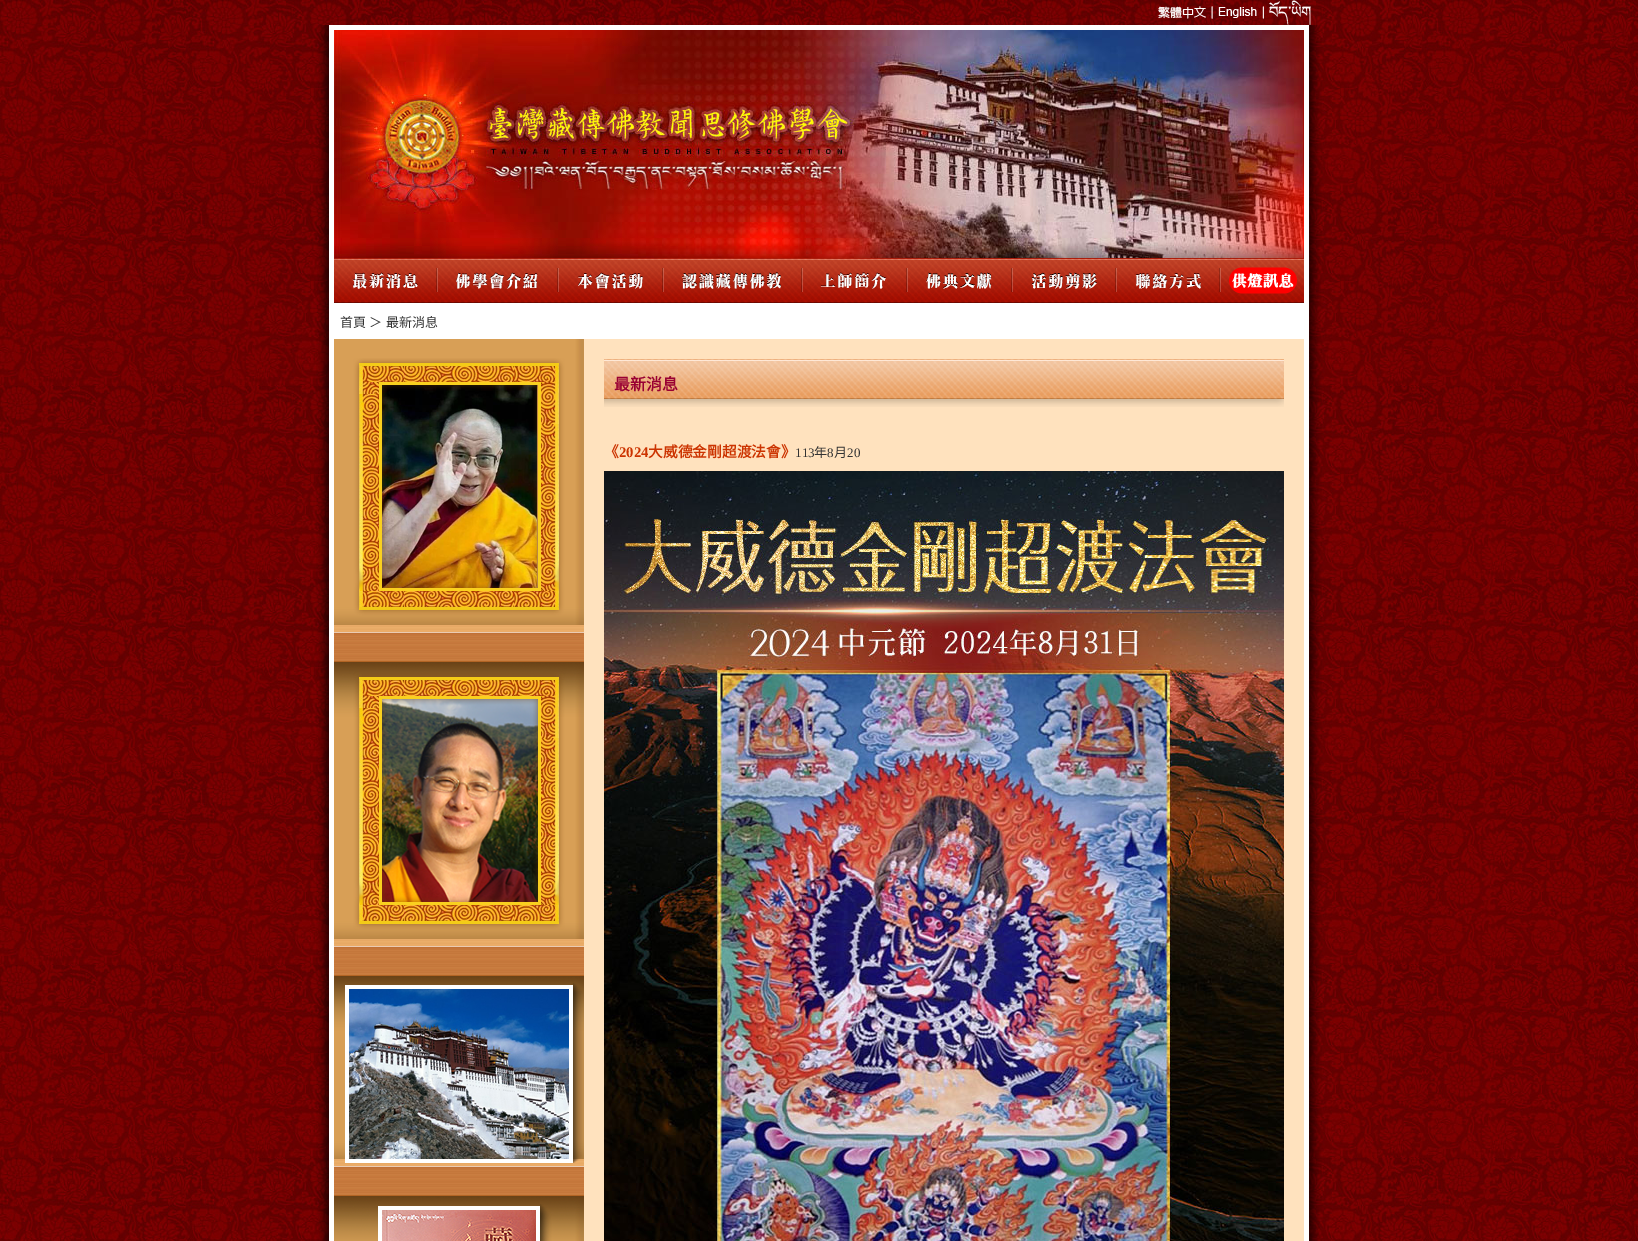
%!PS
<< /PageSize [1638 1241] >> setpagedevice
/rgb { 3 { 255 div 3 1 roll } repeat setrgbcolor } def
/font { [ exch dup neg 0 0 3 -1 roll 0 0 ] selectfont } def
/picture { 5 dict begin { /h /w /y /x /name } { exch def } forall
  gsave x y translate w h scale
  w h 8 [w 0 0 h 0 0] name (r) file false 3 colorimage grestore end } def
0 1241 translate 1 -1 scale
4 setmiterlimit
255 255 255 rgb
0 0 1638 1241 rectfill
(img/1.rgb) 0 0 1638 1241 picture
(img/2.rgb) 1158 0 153 25 picture
(img/3.rgb) 316 25 1006 233 picture
334 25 970 5 rectfill
(img/4.rgb) 334 30 970 228 picture
(img/5.rgb) 317 258 1004 81 picture
(img/6.rgb) 334 258 970 45 picture
(img/7.rgb) 352 272 66 17 picture
(img/8.rgb) 436 268 2 24 picture
(img/9.rgb) 456 272 82 17 picture
(img/10.rgb) 557 268 2 24 picture
(img/11.rgb) 578 272 65 17 picture
(img/12.rgb) 662 268 2 24 picture
(img/13.rgb) 682 272 99 17 picture
(img/14.rgb) 801 268 2 24 picture
(img/15.rgb) 820 272 66 17 picture
(img/16.rgb) 906 268 2 24 picture
(img/17.rgb) 926 272 66 17 picture
(img/18.rgb) 1011 268 2 24 picture
(img/19.rgb) 1032 272 65 17 picture
(img/20.rgb) 1115 268 2 24 picture
(img/21.rgb) 1135 273 66 16 picture
(img/22.rgb) 1219 268 2 24 picture
(img/23.rgb) 1229 267 68 27 picture
334 303 970 36 rectfill
(img/24.rgb) 316 339 1006 902 picture
(img/25.rgb) 334 339 250 902 picture
(img/26.rgb) 334 358 250 883 picture
(img/27.rgb) 604 359 680 48 picture
(img/28.rgb) 604 471 680 770 picture
/NotoSansCJKTC-Regular 13 font
51 51 51 rgb
[
  [(首頁) 340 327]
  [(＞) 369 327]
  [(最新消息) 386 327]
] { aload pop moveto show } forall
/NotoSansCJKTC-Bold 16 font
153 0 51 rgb
614 390 moveto (最新消息) show
/NotoSansCJKTC-Bold 14.75 font
204 51 0 rgb
604 457 moveto (《) show
/LiberationSerif-Bold 14.75 font
619 457 moveto (2024) show
/NotoSansCJKTC-Bold 14.75 font
648 457 moveto (大威德金剛超渡法會》) show
/LiberationSerif-Regular 13 font
51 51 51 rgb
795 457 moveto (113) show
/NotoSansCJKTC-Regular 13 font
814 457 moveto (年) show
/LiberationSerif-Regular 13 font
827 457 moveto (8) show
/NotoSansCJKTC-Regular 13 font
834 457 moveto (月) show
/LiberationSerif-Regular 13 font
847 457 moveto (20) show
showpage
